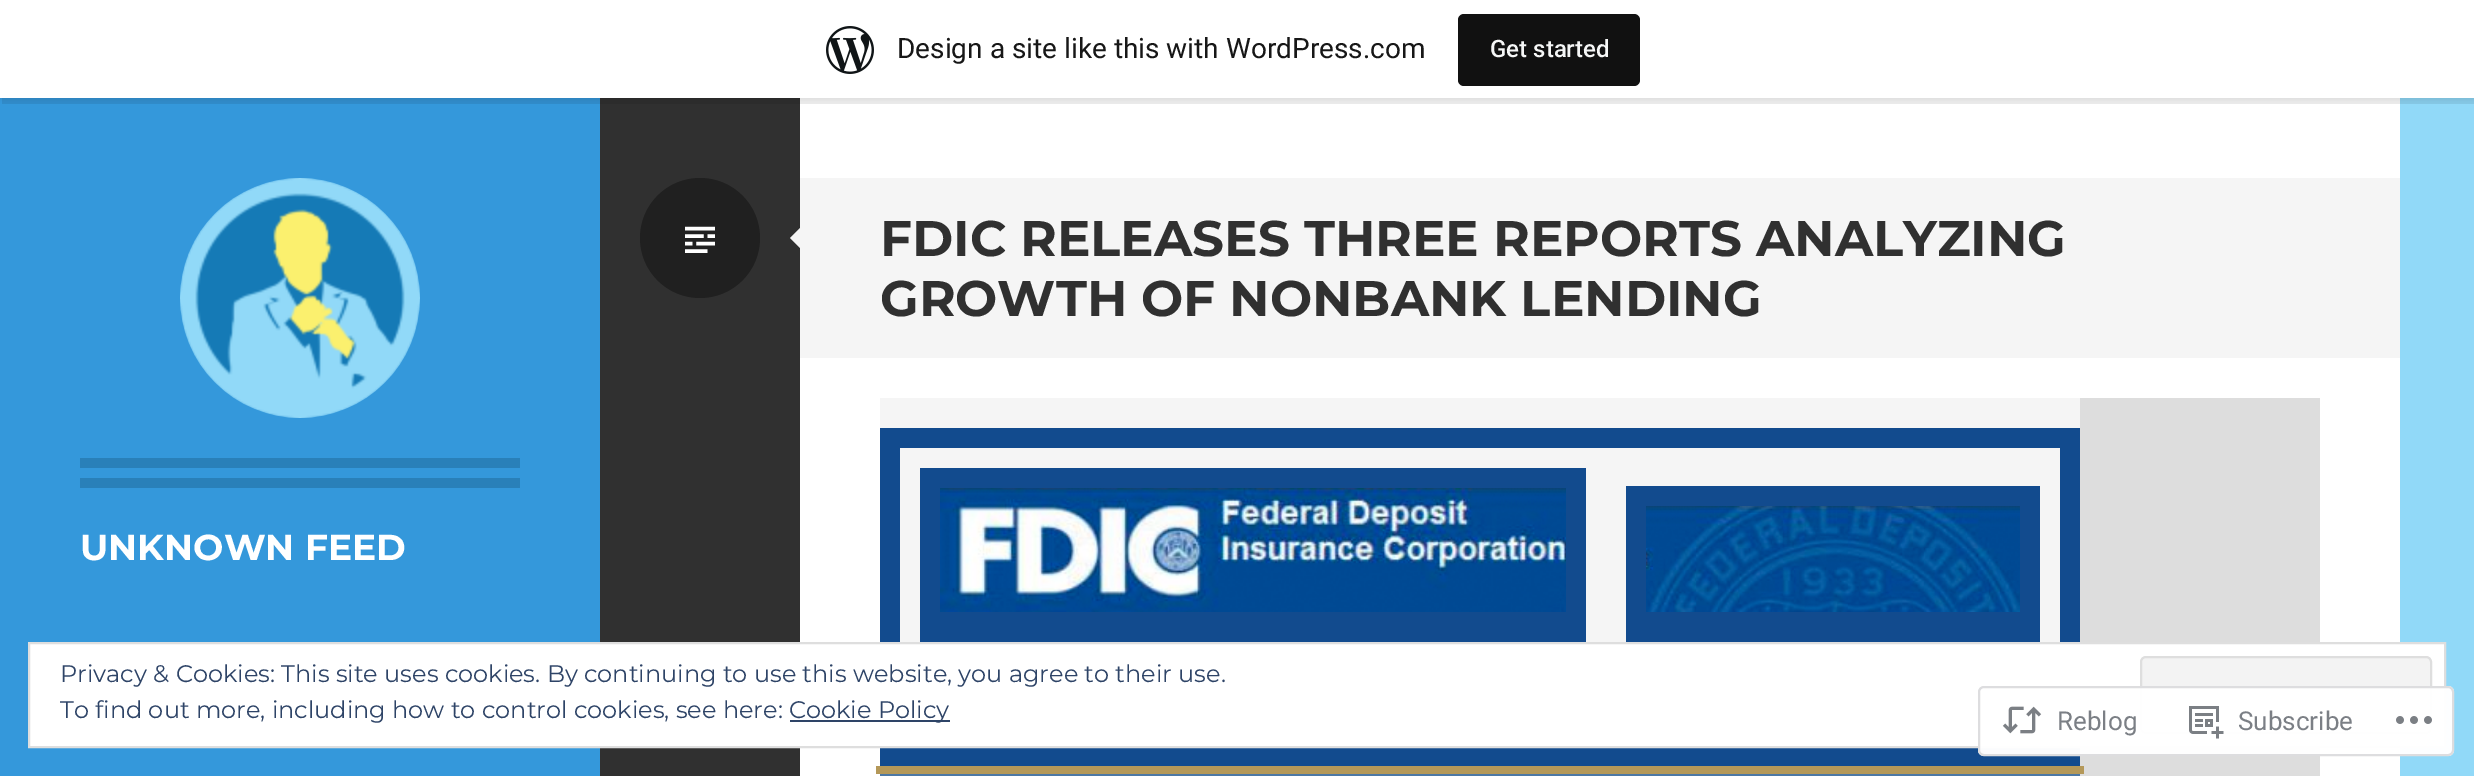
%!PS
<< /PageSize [2474 776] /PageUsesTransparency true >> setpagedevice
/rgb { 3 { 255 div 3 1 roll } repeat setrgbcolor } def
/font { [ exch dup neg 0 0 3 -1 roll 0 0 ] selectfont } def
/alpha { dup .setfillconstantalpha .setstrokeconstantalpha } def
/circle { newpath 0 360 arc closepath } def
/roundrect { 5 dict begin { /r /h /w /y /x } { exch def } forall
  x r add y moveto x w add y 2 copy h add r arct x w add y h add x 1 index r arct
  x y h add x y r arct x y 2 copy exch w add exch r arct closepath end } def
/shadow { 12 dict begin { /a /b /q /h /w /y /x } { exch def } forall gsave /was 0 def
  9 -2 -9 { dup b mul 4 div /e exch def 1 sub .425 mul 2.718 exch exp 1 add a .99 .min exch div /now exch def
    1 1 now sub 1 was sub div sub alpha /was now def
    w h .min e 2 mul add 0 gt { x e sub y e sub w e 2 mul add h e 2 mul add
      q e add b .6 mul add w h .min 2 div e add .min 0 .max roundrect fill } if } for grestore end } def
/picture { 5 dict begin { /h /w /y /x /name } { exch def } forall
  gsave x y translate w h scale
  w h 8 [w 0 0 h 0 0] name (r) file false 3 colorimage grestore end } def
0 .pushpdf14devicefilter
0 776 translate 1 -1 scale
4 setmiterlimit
145 217 248 rgb
0 0 2474 776 rectfill
[
  [0 98 600 678 52 152 219]
  [600 98 200 678 48 48 48]
  [800 98 1600 678 255 255 255]
] { aload pop rgb rectfill } forall
0 0 0 rgb
0 2 2474 98 0 2 0.05 shadow
0.08 alpha
2 98 moveto 2 104 lineto 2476 104 lineto 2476 6 lineto 2474 6 lineto 2474 98 lineto closepath fill
1 alpha
255 255 255 rgb
0 0 2474 98 rectfill
(img/1.rgb) 826 26 48 48 picture
17 17 17 rgb
1458 14 182 72 6 roundrect fill
32 32 32 rgb
700 238 60 circle fill
(img/2.rgb) 685 226 30 27 picture
245 245 245 rgb
800 178 1600 180 rectfill
800 228 moveto 800 248 lineto 790 238 lineto closepath fill
[
  [2080 398 240 378 221 221 221]
  [880 398 1200 30 245 245 245]
  [880 428 1200 338 18 75 142]
  [876 766 1208 8 180 152 89]
  [900 448 1160 194 245 245 245]
  [920 468 666 174 18 75 142]
] { aload pop rgb rectfill } forall
(img/3.rgb) 940 488 626 124 picture
1626 486 414 156 rectfill
(img/4.rgb) 1646 506 374 106 picture
77 120 165 rgb
880 774 1200 2 rectfill
(img/5.rgb) 180 178 240 240 picture
41 128 185 rgb
80 458 440 10 rectfill
80 478 440 10 rectfill
255 255 255 rgb
29 643 moveto 2445 643 lineto 2445 747 lineto 29 747 lineto closepath gsave fill grestore
222 222 222 rgb
2 setlinewidth
stroke
243 243 243 rgb
2141 657 290 76 5 roundrect gsave fill grestore
222 222 222 rgb
stroke
46 68 103 rgb
790 720 160 2 rectfill
0.98 alpha
255 255 255 rgb
1978 686 476 70 6 roundrect fill
220 220 222 rgb
1979 687 474 68 5 roundrect stroke
1 alpha
(img/6.rgb) 2002 706 40 28 picture
(img/7.rgb) 2189 706 35 33 picture
(img/8.rgb) 2396 716 36 8 picture
/Roboto-Regular 28 font
23 23 23 rgb
897 58 moveto (Design a site like this with WordPress.com) show
/Roboto-Medium 24 font
246 247 247 rgb
1490 57 moveto (Get started) show
/Montserrat-Bold 50 font
48 48 48 rgb
880 256 moveto (FDIC RELEASES THREE REPORTS ANALYZING) show
880 316 moveto (GROWTH OF NONBANK LENDING) show
/Montserrat-Bold 36 font
255 255 255 rgb
80 560 moveto (UNKNOWN FEED) show
/Montserrat-Regular 24 font
46 68 103 rgb
[
  [(Privacy & Cookies: This site uses cookies. By continuing to use this website, you agree to their use.) 60 682]
  [(To find out more, including how to control cookies, see here:) 60 718]
  [(Cookie Policy) 789 718]
] { aload pop moveto show } forall
/Roboto-Regular 26 font
123 127 133 rgb
2057 730 moveto (Reblog) show
2238 730 moveto (Subscribe) show
.poppdf14devicefilter showpage
